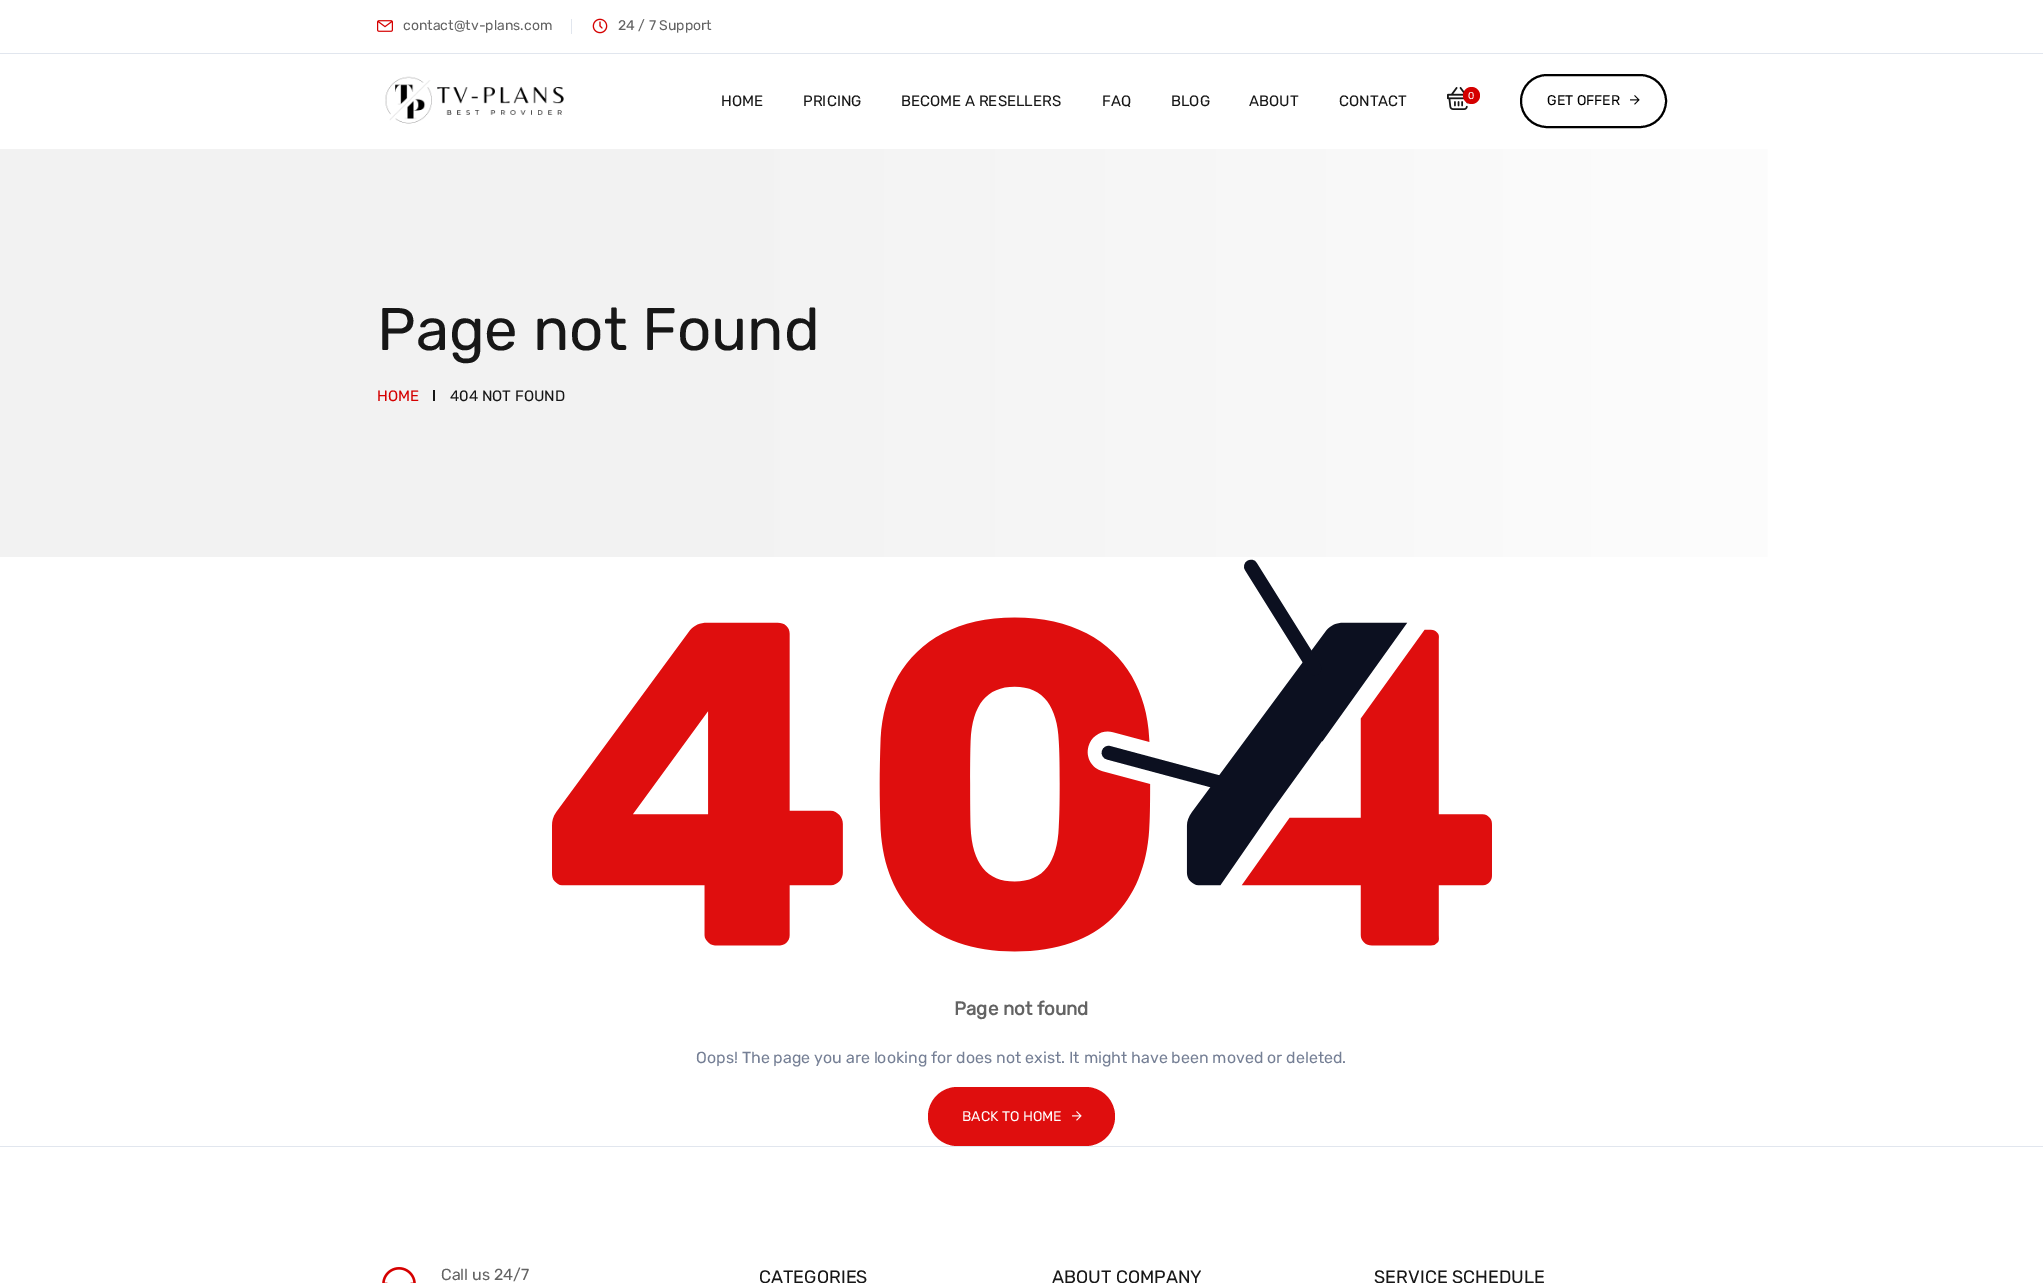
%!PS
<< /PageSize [2043 1283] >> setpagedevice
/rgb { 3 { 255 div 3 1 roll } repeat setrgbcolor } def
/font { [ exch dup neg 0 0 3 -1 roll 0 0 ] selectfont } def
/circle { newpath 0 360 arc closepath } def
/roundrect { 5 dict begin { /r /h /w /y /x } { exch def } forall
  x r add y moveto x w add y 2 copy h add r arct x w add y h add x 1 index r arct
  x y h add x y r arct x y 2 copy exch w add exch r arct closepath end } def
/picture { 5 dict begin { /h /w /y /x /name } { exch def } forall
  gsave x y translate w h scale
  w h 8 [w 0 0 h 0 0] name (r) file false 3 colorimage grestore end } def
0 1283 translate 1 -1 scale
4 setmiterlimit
255 255 255 rgb
0 0 2043 1283 rectfill
225 230 238 rgb
0 53 2043 1 rectfill
(img/1.rgb) 377 20 16 12 picture
571 19 1 15 rectfill
(img/2.rgb) 592 18 16 16 picture
(img/3.rgb) 385 76 179 48 picture
(img/4.rgb) 1447 87 21 23 picture
213 0 0 rgb
1471.5 95.5 8.5 circle fill
0 0 0 rgb
2 setlinewidth
1521 75 145 52 26 roundrect stroke
(img/5.rgb) 1630 95 10 10 picture
gsave 0 149 moveto 1768 149 lineto 1768 557 lineto 0 557 lineto closepath clip newpath
<< /ShadingType 2 /ColorSpace /DeviceRGB /Coords [0 353 2043 353] /Extend [true true] /Function << /FunctionType 3 /Domain [0 1] /Functions [<< /FunctionType 2 /Domain [0 1] /C0 [0.949 0.949 0.949] /C1 [0.949 0.949 0.949] /N 1 >> << /FunctionType 2 /Domain [0 1] /C0 [0.949 0.949 0.949] /C1 [1 1 1] /N 1 >>] /Bounds [0.3] /Encode [0 1 0 1] >> >> shfill grestore
23 23 23 rgb
433 390 2 11 rectfill
(img/6.rgb) 552 559 940 393 picture
223 14 14 rgb
928 1087 187 59 29.5 roundrect fill
(img/7.rgb) 1072 1111 10 10 picture
225 230 238 rgb
0 1146 2043 1 rectfill
(img/8.rgb) 382 1267 34 16 picture
/Rubik-Light 14 font
99 99 99 rgb
403 30 moveto (contact@tv-plans.com) show
618 30 moveto (24 / 7 Support) show
/Rubik-Light 15 font
23 23 23 rgb
[
  [(HOME) 721 106]
  [(PRICING) 803 106]
  [(BECOME A RESELLERS) 901 106]
  [(FAQ) 1102 106]
  [(BLOG) 1171 106]
  [(ABOUT) 1249 106]
  [(CONTACT) 1339 106]
] { aload pop moveto show } forall
/Rubik-Light 10 font
255 255 255 rgb
1468 99 moveto (0) show
/Rubik-Light 14 font
0 0 0 rgb
1547 105 moveto (GET OFFER) show
/Rubik-Light 60 font
23 23 23 rgb
377 350 moveto (Page not Found) show
/Rubik-Light 15 font
213 0 0 rgb
377 401 moveto (HOME) show
23 23 23 rgb
450 401 moveto (404 NOT FOUND) show
/Rubik-Bold 18.75 font
99 99 99 rgb
954 1015 moveto (Page not found) show
/Rubik-Light 16 font
117 127 149 rgb
696 1063 moveto (Oops! The page you are looking for does not exist. It might have been moved or deleted.) show
/Rubik-Light 14 font
255 255 255 rgb
962 1121 moveto (BACK TO HOME) show
/Rubik-Light 16 font
99 99 99 rgb
441 1280 moveto (Call us 24/7) show
/Rubik-Light 18 font
23 23 23 rgb
[
  [(CATEGORIES) 759 1283]
  [(ABOUT COMPANY) 1052 1283]
  [(SERVICE SCHEDULE) 1374 1283]
] { aload pop moveto show } forall
showpage
